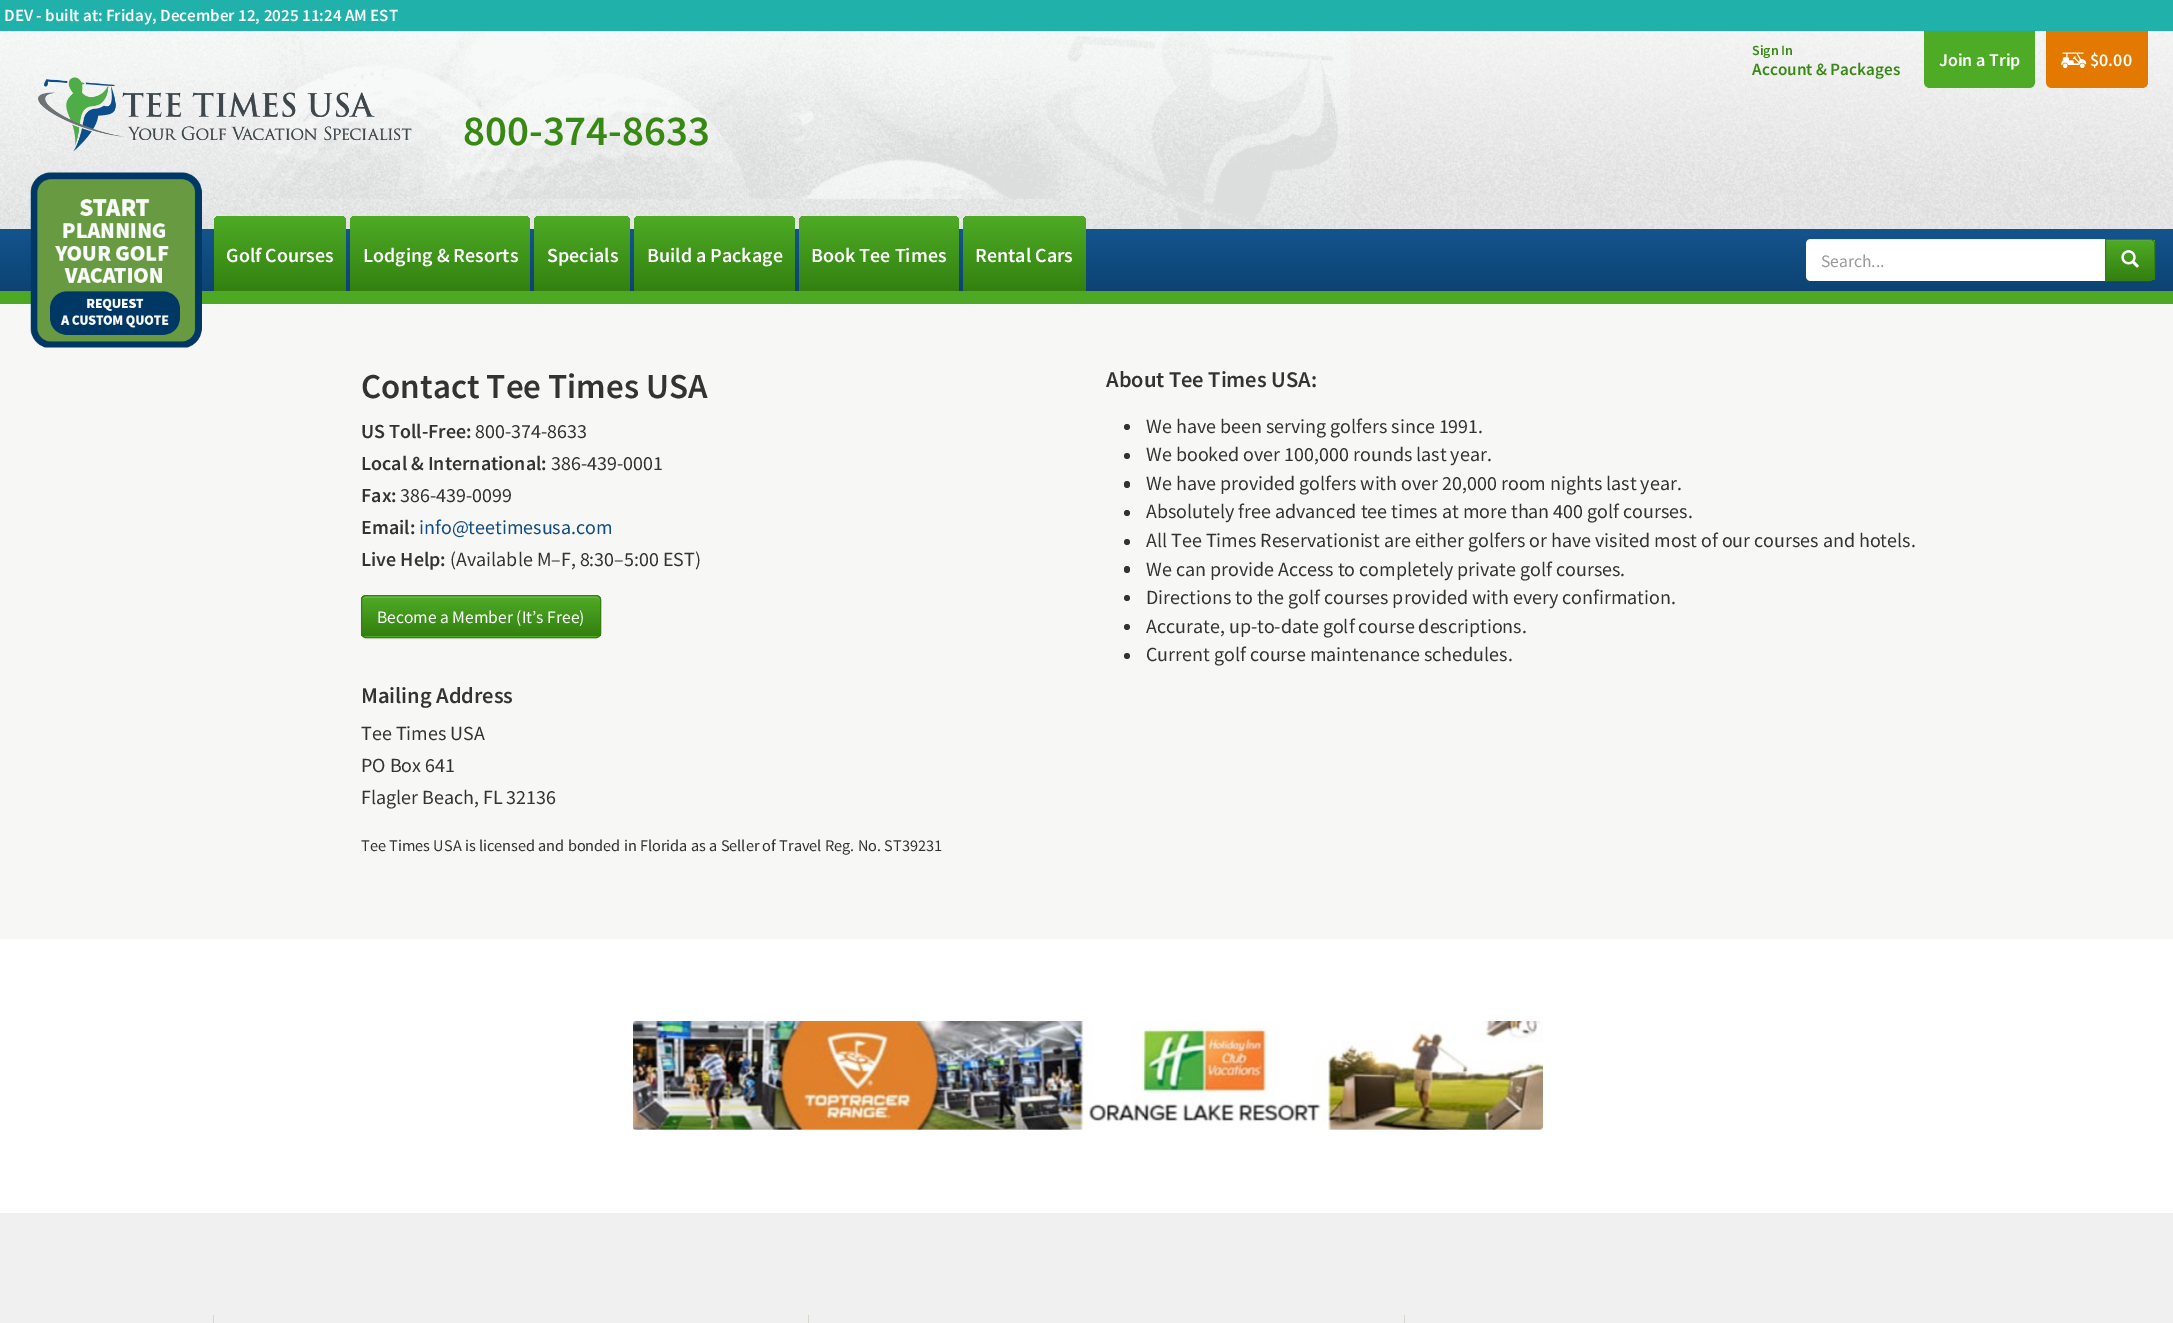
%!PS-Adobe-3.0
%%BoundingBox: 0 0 2173 1323
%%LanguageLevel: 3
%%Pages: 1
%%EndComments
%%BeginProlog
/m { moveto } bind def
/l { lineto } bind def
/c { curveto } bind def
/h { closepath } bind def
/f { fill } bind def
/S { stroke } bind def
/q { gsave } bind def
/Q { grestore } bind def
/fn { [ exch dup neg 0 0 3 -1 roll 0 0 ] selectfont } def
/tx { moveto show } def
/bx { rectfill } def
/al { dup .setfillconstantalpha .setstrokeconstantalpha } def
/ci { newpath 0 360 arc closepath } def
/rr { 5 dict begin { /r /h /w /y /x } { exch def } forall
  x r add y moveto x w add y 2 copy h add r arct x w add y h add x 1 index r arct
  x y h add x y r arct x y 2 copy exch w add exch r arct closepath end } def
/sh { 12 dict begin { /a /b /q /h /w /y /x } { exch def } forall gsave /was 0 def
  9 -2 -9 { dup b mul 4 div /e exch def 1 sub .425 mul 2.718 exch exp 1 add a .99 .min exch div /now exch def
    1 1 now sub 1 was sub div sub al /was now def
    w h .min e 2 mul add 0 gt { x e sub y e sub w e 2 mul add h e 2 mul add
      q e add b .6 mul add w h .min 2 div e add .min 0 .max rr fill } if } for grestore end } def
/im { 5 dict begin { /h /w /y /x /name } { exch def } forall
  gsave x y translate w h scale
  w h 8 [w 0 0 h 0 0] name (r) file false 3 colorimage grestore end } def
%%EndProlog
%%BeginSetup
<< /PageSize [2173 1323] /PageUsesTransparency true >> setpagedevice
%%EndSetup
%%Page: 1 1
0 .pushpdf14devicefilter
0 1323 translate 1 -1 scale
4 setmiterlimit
1 setgray
0 0 2173 1323 bx
(image0.raw) 0 31 2173 198 im
0.125 0.698 0.667 setrgbcolor
0 0 2173 31 bx
/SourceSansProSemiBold-SemiBold 17 fn
1 setgray
(DEV - built at: Friday, December 12, 2025 11:24 AM EST) 4 21 tx
(image1.raw) 0 31 1350 198 im
/SourceSansProSemiBold-SemiBold 14 fn
0.22 0.537 0.075 setrgbcolor
(Sign In) 1752 55 tx
/SourceSansProSemiBold-SemiBold 17.25 fn
(Account & Packages) 1752 75 tx
0.306 0.671 0.145 setrgbcolor
1924 31 m 2035 31 l 2035 82 l 2035 85.5 2032.5 88 2029 88 c 1930 88 l 1926.5 88 1924 85.5 1924 82 c h f
/SourceSansProSemiBold-SemiBold 18 fn
1 setgray
(Join a Trip) 1939 66 tx
0.894 0.475 0 setrgbcolor
2046 31 m 2148 31 l 2148 82 l 2148 85.5 2145.5 88 2142 88 c 2052 88 l 2048.5 88 2046 85.5 2046 82 c h f
(image2.raw) 2061 52 26 17 im
1 setgray
($0.00) 2090 66 tx
(image3.raw) 38 77 374 75 im
/SourceSansProSemiBold-SemiBold 42.75 fn
0.22 0.537 0.075 setrgbcolor
(800-374-8633) 463 145 tx
q 0 229 m 2173 229 l 2173 291 l 0 291 l h clip newpath
<< /ShadingType 2 /ColorSpace /DeviceRGB /Coords [1087 229 1087 291] /Extend [true true] /Function << /FunctionType 2 /Domain [0 1] /C0 [0.078 0.329 0.553] /C1 [0.047 0.263 0.451] /N 1 >> >> shfill Q
0.302 0.659 0.141 setrgbcolor
0 291 2173 13 bx
0.969 0.969 0.961 setrgbcolor
0 304 2173 635 bx
(image4.raw) 30 172 172 176 im
q 220 216 m 340 216 l 343.5 216 346 218.5 346 222 c 346 291 l 214 291 l 214 222 l 214 218.5 216.5 216 220 216 c h clip newpath
<< /ShadingType 2 /ColorSpace /DeviceRGB /Coords [280 216 280 291] /Extend [true true] /Function << /FunctionType 2 /Domain [0 1] /C0 [0.306 0.671 0.145] /C1 [0.196 0.506 0.063] /N 1 >> >> shfill Q
/SourceSansProSemiBold-SemiBold 20 fn
1 setgray
(Golf Courses) 226 262 tx
q 356 216 m 524 216 l 527.5 216 530 218.5 530 222 c 530 291 l 350 291 l 350 222 l 350 218.5 352.5 216 356 216 c h clip newpath
<< /ShadingType 2 /ColorSpace /DeviceRGB /Coords [440 216 440 291] /Extend [true true] /Function << /FunctionType 2 /Domain [0 1] /C0 [0.306 0.671 0.145] /C1 [0.196 0.506 0.063] /N 1 >> >> shfill Q
(Lodging & Resorts) 363 262 tx
q 540 216 m 624 216 l 627.5 216 630 218.5 630 222 c 630 291 l 534 291 l 534 222 l 534 218.5 536.5 216 540 216 c h clip newpath
<< /ShadingType 2 /ColorSpace /DeviceRGB /Coords [582 216 582 291] /Extend [true true] /Function << /FunctionType 2 /Domain [0 1] /C0 [0.306 0.671 0.145] /C1 [0.196 0.506 0.063] /N 1 >> >> shfill Q
(Specials) 547 262 tx
q 640 216 m 789 216 l 792.5 216 795 218.5 795 222 c 795 291 l 634 291 l 634 222 l 634 218.5 636.5 216 640 216 c h clip newpath
<< /ShadingType 2 /ColorSpace /DeviceRGB /Coords [714 216 714 291] /Extend [true true] /Function << /FunctionType 2 /Domain [0 1] /C0 [0.306 0.671 0.145] /C1 [0.196 0.506 0.063] /N 1 >> >> shfill Q
(Build a Package) 647 262 tx
q 805 216 m 953 216 l 956.5 216 959 218.5 959 222 c 959 291 l 799 291 l 799 222 l 799 218.5 801.5 216 805 216 c h clip newpath
<< /ShadingType 2 /ColorSpace /DeviceRGB /Coords [879 216 879 291] /Extend [true true] /Function << /FunctionType 2 /Domain [0 1] /C0 [0.306 0.671 0.145] /C1 [0.196 0.506 0.063] /N 1 >> >> shfill Q
(Book Tee Times) 811 262 tx
q 969 216 m 1080 216 l 1083.5 216 1086 218.5 1086 222 c 1086 291 l 963 291 l 963 222 l 963 218.5 965.5 216 969 216 c h clip newpath
<< /ShadingType 2 /ColorSpace /DeviceRGB /Coords [1024 216 1024 291] /Extend [true true] /Function << /FunctionType 2 /Domain [0 1] /C0 [0.306 0.671 0.145] /C1 [0.196 0.506 0.063] /N 1 >> >> shfill Q
(Rental Cars) 975 262 tx
1811 239 m 2106 239 l 2106 281 l 1811 281 l 1808 281 1806 279 1806 276 c 1806 244 l 1806 241 1808 239 1811 239 c h f
0.07 al
0 setgray
1811 240 m 2106 240 l 2106 239 l 1811 239 l 1808 239 1806 242 1806 245 c 1806 242 1808 240 1811 240 c h f
/SourceSansPro-Regular 17.5 fn
1 al
0.6 setgray
(Search...) 1821 267 tx
0 setgray
2105 240 50 43 5 0.5 0.07 sh
q
2105 239 m 2150 239 l 2153 239 2155 241 2155 244 c 2155 276 l 2155 279 2153 281 2150 281 c 2105 281 l h clip newpath
q 2106 240 m 2155 240 l 2155 280 l 2106 280 l h clip newpath
<< /ShadingType 2 /ColorSpace /DeviceRGB /Coords [2130 240 2130 280] /Extend [true true] /Function << /FunctionType 2 /Domain [0 1] /C0 [0.31 0.671 0.145] /C1 [0.2 0.502 0.063] /N 1 >> >> shfill Q
Q
0.412 0.718 0.275 setrgbcolor
2106 241 m 2150 241 l 2152 241 2154 243 2154 245 c 2154 244 l 2154 242 2152 240 2150 240 c 2106 240 l h f
0.2 0.502 0.063 setrgbcolor
2105.5 239.5 m 2150 239.5 l 2152.5 239.5 2154.5 241.5 2154.5 244 c 2154.5 276 l 2154.5 278.5 2152.5 280.5 2150 280.5 c 2105.5 280.5 l h S
(image5.raw) 2121 250 18 18 im
/SourceSansProSemiBold-SemiBold 35 fn
0.2 setgray
(Contact Tee Times USA) 361 398 tx
/SourceSansProSemiBold-SemiBold 20 fn
(US Toll-Free:) 361 438 tx
/SourceSansPro-Regular 20 fn
(800-374-8633) 475 438 tx
/SourceSansProSemiBold-SemiBold 20 fn
(Local & International:) 361 470 tx
/SourceSansPro-Regular 20 fn
(386-439-0001) 551 470 tx
/SourceSansProSemiBold-SemiBold 20 fn
(Fax:) 361 502 tx
/SourceSansPro-Regular 20 fn
(386-439-0099) 400 502 tx
/SourceSansProSemiBold-SemiBold 20 fn
(Email:) 361 534 tx
/SourceSansPro-Regular 20 fn
0.067 0.298 0.506 setrgbcolor
(info@teetimesusa.com) 419 534 tx
/SourceSansProSemiBold-SemiBold 20 fn
0.2 setgray
(Live Help:) 361 566 tx
/SourceSansPro-Regular 20 fn
(\(Available M–F, 8:30–5:00 EST\)) 450 566 tx
0 setgray
361 596 240 43 5 0.5 0.07 sh
0.31 0.671 0.145 setrgbcolor
361 595 240 43 5 rr f
q
361 595 240 43 5 rr clip newpath
q 361 596 m 601 596 l 601 636 l 361 636 l h clip newpath
<< /ShadingType 2 /ColorSpace /DeviceRGB /Coords [481 596 481 636] /Extend [true true] /Function << /FunctionType 2 /Domain [0 1] /C0 [0.31 0.671 0.145] /C1 [0.2 0.502 0.063] /N 1 >> >> shfill Q
Q
0.412 0.714 0.271 setrgbcolor
366 598 m 596 598 l 598 598 600 599 600 601 c 600 600 l 600 598 598 596 596 596 c 367 596 l 365 596 364 597 363 599 c h f
0.2 0.502 0.063 setrgbcolor
361.5 595.5 239 42 4.5 rr S
/SourceSansPro-Regular 17.5 fn
1 setgray
(Become a Member \(It’s Free\)) 377 623 tx
/SourceSansProSemiBold-SemiBold 22.5 fn
0.2 setgray
(Mailing Address) 361 703 tx
/SourceSansPro-Regular 20 fn
(Tee Times USA) 361 740 tx
(PO Box 641) 361 772 tx
(Flagler Beach, FL 32136) 361 804 tx
/SourceSansPro-Regular 16.25 fn
(Tee Times USA is licensed and bonded in Florida as a Seller of Travel Reg. No. ST39231) 361 851 tx
/SourceSansProSemiBold-SemiBold 22.5 fn
(About Tee Times USA:) 1106 387 tx
1127 427 3 ci f
/SourceSansPro-Regular 20 fn
(We have been serving golfers since 1991.) 1146 433 tx
1127 456 3 ci f
(We booked over 100,000 rounds last year.) 1146 461 tx
1124 481 6 7 3 rr f
(We have provided golfers with over 20,000 room nights last year.) 1146 490 tx
1127 513 3 ci f
(Absolutely free advanced tee times at more than 400 golf courses.) 1146 518 tx
1127 542 3 ci f
(All Tee Times Reservationist are either golfers or have visited most of our courses and hotels.) 1146 547 tx
1124 566 6 7 3 rr f
(We can provide Access to completely private golf courses.) 1146 576 tx
1127 598 3 ci f
(Directions to the golf courses provided with every confirmation.) 1146 604 tx
1127 627 3 ci f
(Accurate, up-to-date golf course descriptions.) 1146 633 tx
1127 656 3 ci f
(Current golf course maintenance schedules.) 1146 661 tx
(image6.raw) 633 1021 910 109 im
0.941 setgray
0 1213 2173 110 bx
0.839 0.839 0.8 setrgbcolor
213 1315 1 8 bx
808 1315 1 8 bx
1404 1315 1 8 bx
.poppdf14devicefilter showpage
%%EOF
